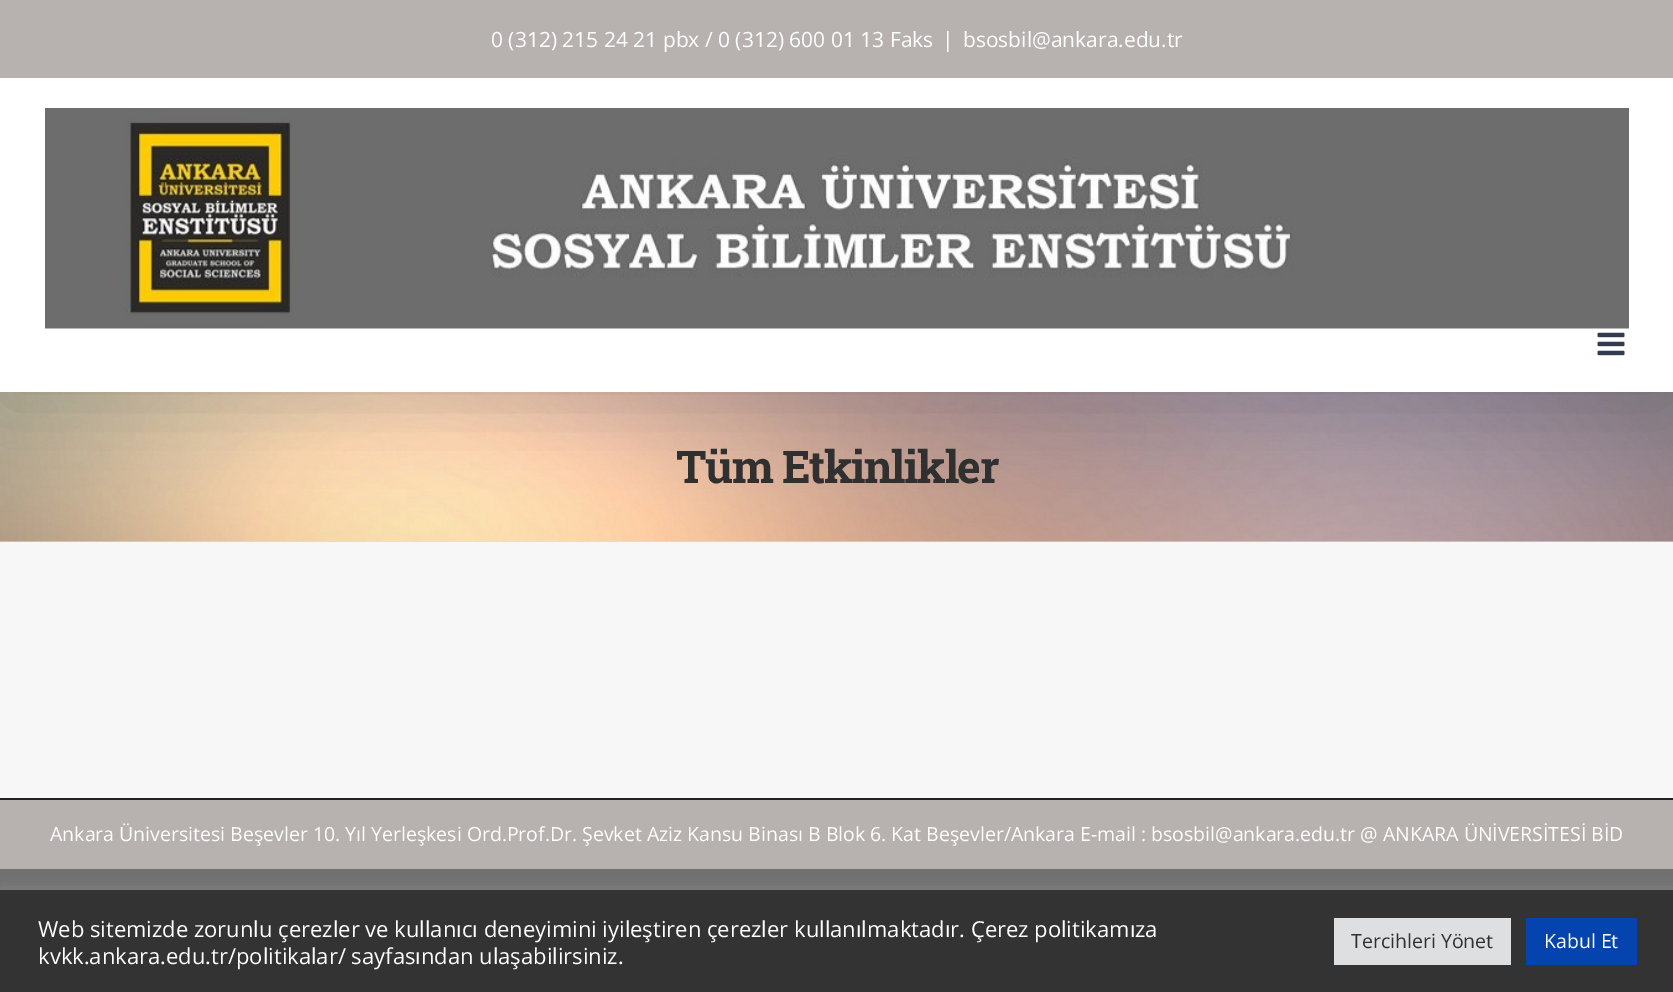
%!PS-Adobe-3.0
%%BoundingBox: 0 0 1673 992
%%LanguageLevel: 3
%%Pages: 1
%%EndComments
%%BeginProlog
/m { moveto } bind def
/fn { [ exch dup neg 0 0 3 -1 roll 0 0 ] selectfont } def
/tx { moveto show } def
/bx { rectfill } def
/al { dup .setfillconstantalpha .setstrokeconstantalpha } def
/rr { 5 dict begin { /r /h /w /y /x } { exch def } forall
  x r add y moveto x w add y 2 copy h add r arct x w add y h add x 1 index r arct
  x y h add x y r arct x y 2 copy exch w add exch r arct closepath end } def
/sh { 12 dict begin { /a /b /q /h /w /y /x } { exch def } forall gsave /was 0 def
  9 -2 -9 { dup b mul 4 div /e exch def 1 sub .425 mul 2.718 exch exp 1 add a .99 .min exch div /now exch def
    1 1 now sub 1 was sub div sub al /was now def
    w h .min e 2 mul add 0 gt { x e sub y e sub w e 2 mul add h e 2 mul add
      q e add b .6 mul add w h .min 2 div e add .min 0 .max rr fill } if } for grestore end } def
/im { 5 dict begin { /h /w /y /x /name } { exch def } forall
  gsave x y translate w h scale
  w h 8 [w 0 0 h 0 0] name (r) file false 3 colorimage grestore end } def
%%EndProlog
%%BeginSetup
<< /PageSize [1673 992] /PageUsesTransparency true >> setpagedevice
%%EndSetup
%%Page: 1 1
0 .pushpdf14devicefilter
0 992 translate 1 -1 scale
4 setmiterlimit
0.439 setgray
0 0 1673 992 bx
0.882 0.882 0.89 setrgbcolor
0 541 1673 1 bx
(image2.raw) 0 392 1673 150 im
0 setgray
3 18 1668 386 0 37.5 0.14 sh
0.718 0.694 0.686 setrgbcolor
0 0 1673 78 bx
/OpenSans-Regular 21 fn
1 setgray
(0 \(312\) 215 24 21 pbx / 0 \(312\) 600 01 13 Faks) 491 47 tx
(|) 942 47 tx
(bsosbil@ankara.edu.tr) 963 47 tx
0 78 1673 314 bx
(image0.raw) 45 108 1584 221 im
(image1.raw) 1597 332 28 24 im
/RobotoSlab-Bold 45 fn
0.188 setgray
676 483 m -1.5 0 (Tüm Etkinlikler) ashow
0.969 setgray
0 542 1673 256 bx
0.718 0.694 0.686 setrgbcolor
0 800 1673 69 bx
0.129 setgray
0 798 1673 2 bx
/OpenSans-Regular 19.5 fn
1 setgray
(Ankara Üniversitesi Beşevler 10. Yıl Yerleşkesi Ord.Prof.Dr. Şevket Aziz Kansu Binası B Blok 6. Kat Beşevler/Ankara E-mail : bsosbil@ankara.edu.tr @ ANKARA ÜNİVERSİTESİ BİD) 50 841 tx
0.675 0.671 0.671 setrgbcolor
0 888 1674 104 0 7.5 0.3 sh
0.2 setgray
0 890 1673 102 bx
/OpenSans-Regular 22 fn
1 setgray
(Web sitemizde zorunlu çerezler ve kullanıcı deneyimini iyileştiren çerezler kullanılmaktadır. Çerez politikamıza) 38 937 tx
(kvkk.ankara.edu.tr/politikalar/ sayfasından ulaşabilirsiniz.) 38 964 tx
0.871 0.875 0.878 setrgbcolor
1334 918 177 47 bx
/OpenSans-Regular 19.5 fn
0.188 setgray
(Tercihleri Yönet) 1351 948 tx
0.02 0.267 0.682 setrgbcolor
1526 918 111 47 bx
1 setgray
(Kabul Et) 1544 948 tx
.poppdf14devicefilter showpage
%%EOF
